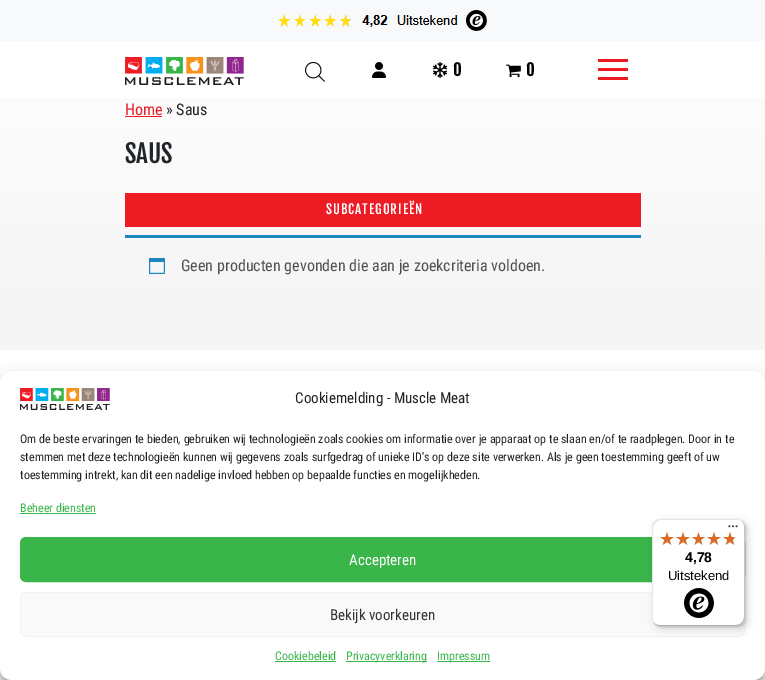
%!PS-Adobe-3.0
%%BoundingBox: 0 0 765 680
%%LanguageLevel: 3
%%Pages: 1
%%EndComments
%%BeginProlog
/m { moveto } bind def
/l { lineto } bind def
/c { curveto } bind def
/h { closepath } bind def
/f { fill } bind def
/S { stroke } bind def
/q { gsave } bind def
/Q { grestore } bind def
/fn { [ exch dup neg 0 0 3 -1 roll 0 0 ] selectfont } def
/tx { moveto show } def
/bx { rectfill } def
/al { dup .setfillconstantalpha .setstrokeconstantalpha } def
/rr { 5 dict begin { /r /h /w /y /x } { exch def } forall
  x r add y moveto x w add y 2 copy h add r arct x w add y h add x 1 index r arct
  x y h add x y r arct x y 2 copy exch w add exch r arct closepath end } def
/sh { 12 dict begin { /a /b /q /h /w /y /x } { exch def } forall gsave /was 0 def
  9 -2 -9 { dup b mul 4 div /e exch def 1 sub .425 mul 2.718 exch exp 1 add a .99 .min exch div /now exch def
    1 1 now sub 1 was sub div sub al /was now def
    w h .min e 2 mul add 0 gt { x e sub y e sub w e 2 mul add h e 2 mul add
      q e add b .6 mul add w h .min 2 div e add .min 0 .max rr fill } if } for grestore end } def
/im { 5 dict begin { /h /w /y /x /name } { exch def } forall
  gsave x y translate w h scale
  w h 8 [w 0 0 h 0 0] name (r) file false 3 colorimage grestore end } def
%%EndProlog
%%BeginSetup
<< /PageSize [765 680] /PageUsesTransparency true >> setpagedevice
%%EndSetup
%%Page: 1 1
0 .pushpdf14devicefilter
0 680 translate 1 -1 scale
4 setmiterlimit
1 setgray
0 0 765 680 bx
q 0 98 m 765 98 l 765 350 l 0 350 l h clip newpath
<< /ShadingType 2 /ColorSpace /DeviceRGB /Coords [382 0 383 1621] /Extend [true true] /Function << /FunctionType 3 /Domain [0 1] /Functions [<< /FunctionType 2 /Domain [0 1] /C0 [1 1 1] /C1 [0.961 0.961 0.961] /N 1 >> << /FunctionType 2 /Domain [0 1] /C0 [0.961 0.961 0.961] /C1 [0.961 0.961 0.961] /N 1 >>] /Bounds [0.2] /Encode [0 1 0 1] >> >> shfill Q
0.973 0.976 0.98 setrgbcolor
0 0 765 41 bx
(image0.raw) 278 10 209 21 im
(image1.raw) 125 57 119 28 im
(image2.raw) 305 62 20 20 im
(image3.raw) 372 62 14 16 im
(image4.raw) 433 62 14 16 im
/FjallaOne-Bold 16 fn
0 setgray
453 76 m 1 0 (0) ashow
(image5.raw) 506 64 15 14 im
526 76 m 1 0 (0) ashow
0.929 0.11 0.141 setrgbcolor
598 59 30 3 bx
598 68 30 3 bx
598 77 30 3 bx
/RobotoCondensed-Regular 16 fn
(Home) 125 115 tx
125 116 37 1 bx
0.129 0.145 0.161 setrgbcolor
(» Saus) 166 115 tx
/FjallaOne-Regular 25 fn
(SAUS) 125 163 tx
0.929 0.11 0.141 setrgbcolor
125 193 516 34 bx
/FjallaOne-Regular 13 fn
1 setgray
326 214 m 1 0 (SUBCATEGORIEËN) ashow
0.118 0.522 0.745 setrgbcolor
125 235 516 3 bx
(image6.raw) 149 258 16 16 im
/RobotoCondensed-Regular 16 fn
0.318 setgray
(Geen producten gevonden die aan je zoekcriteria voldoen.) 181 271 tx
0 setgray
0 377 765 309 12 3 0.23 sh
0 381 765 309 12 10 0.19 sh
1 setgray
0 371 765 309 12 rr f
(image7.raw) 20 388 90 22 im
/RobotoCondensed-Regular 15 fn
0.133 setgray
(Cookiemelding - Muscle Meat) 295 403 tx
/RobotoCondensed-Regular 12 fn
(Om de beste ervaringen te bieden, gebruiken wij technologieën zoals cookies om informatie over je apparaat op te slaan en/of te raadplegen. Door in te) 20 443 tx
(stemmen met deze technologieën kunnen wij gegevens zoals surfgedrag of unieke ID's op deze site verwerken. Als je geen toestemming geeft of uw) 20 461 tx
(toestemming intrekt, kan dit een nadelige invloed hebben op bepaalde functies en mogelijkheden.) 20 479 tx
0.224 0.71 0.29 setrgbcolor
(Beheer diensten) 20 512 tx
20 513 76 1 bx
20.5 537.5 724 44 5.5 rr q f Q
S
/RobotoCondensed-Regular 15 fn
1 setgray
(Accepteren) 349 565 tx
0.976 setgray
20.5 592.5 724 44 5.5 rr q f Q
0.949 setgray
S
0.2 setgray
(Bekijk voorkeuren) 330 620 tx
/RobotoCondensed-Regular 12 fn
0.224 0.71 0.29 setrgbcolor
(Cookiebeleid) 275 660 tx
275 661 61 1 bx
346 661 81 1 bx
(Privacyverklaring) 346 660 tx
437 661 53 1 bx
(Impressum) 437 660 tx
0 setgray
655 522 93 107 8 4 0.15 sh
653 520 93 107 8 1 0.15 sh
1 setgray
652 519 93 107 8 rr f
0.898 setgray
661 520 m 738 520 l 740 520 742 521 744 523 c 742 521 740 519 737 519 c 660 519 l 656 519 652 523 652 527 c 652 618 l 652 621 654 623 656 625 c 654 623 653 621 653 619 c 653 528 l 653 524 657 520 661 520 c h f
0.2 al
0 setgray
653 622 m 655 624 657 626 660 626 c 737 626 l 741 626 745 622 745 618 c 745 527 l 745 524 743 522 741 520 c 743 522 744 524 744 526 c 744 617 l 744 621 740 625 736 625 c 659 625 l 657 625 655 624 653 622 c h f
0.196 setgray
654 623 m 655 625 658 626 660 626 c 737 626 l 741 626 745 622 745 618 c 745 527 l 745 525 744 522 742 521 c 743 522 744 524 744 526 c 744 617 l 744 622 741 625 736 625 c 659 625 l 657 625 655 624 654 623 c h f
0.3 al
1 setgray
736 626 m 737 626 l 741 626 745 622 745 618 c 745 527 l 745 525 744 522 742 521 c 743 522 744 524 744 526 c 744 618 l 744 622 741 626 736 626 c h f
1 al
(image8.raw) 728 525 10 3 im
(image9.raw) 660 532 14 13 im
(image9.raw) 676 532 14 13 im
(image10.raw) 692 532 13 13 im
(image9.raw) 707 532 14 13 im
(image9.raw) 723 532 14 13 im
(image11.raw) 660 532 14 13 im
(image11.raw) 676 532 14 13 im
(image12.raw) 692 532 13 13 im
(image11.raw) 707 532 14 13 im
(image13.raw) 723 532 11 13 im
/LiberationSans-Bold 14 fn
0 setgray
(4,78) 685 562 tx
/LiberationSans-Regular 13 fn
(Uitstekend) 668 580 tx
(image14.raw) 684 588 30 30 im
.poppdf14devicefilter showpage
%%EOF
